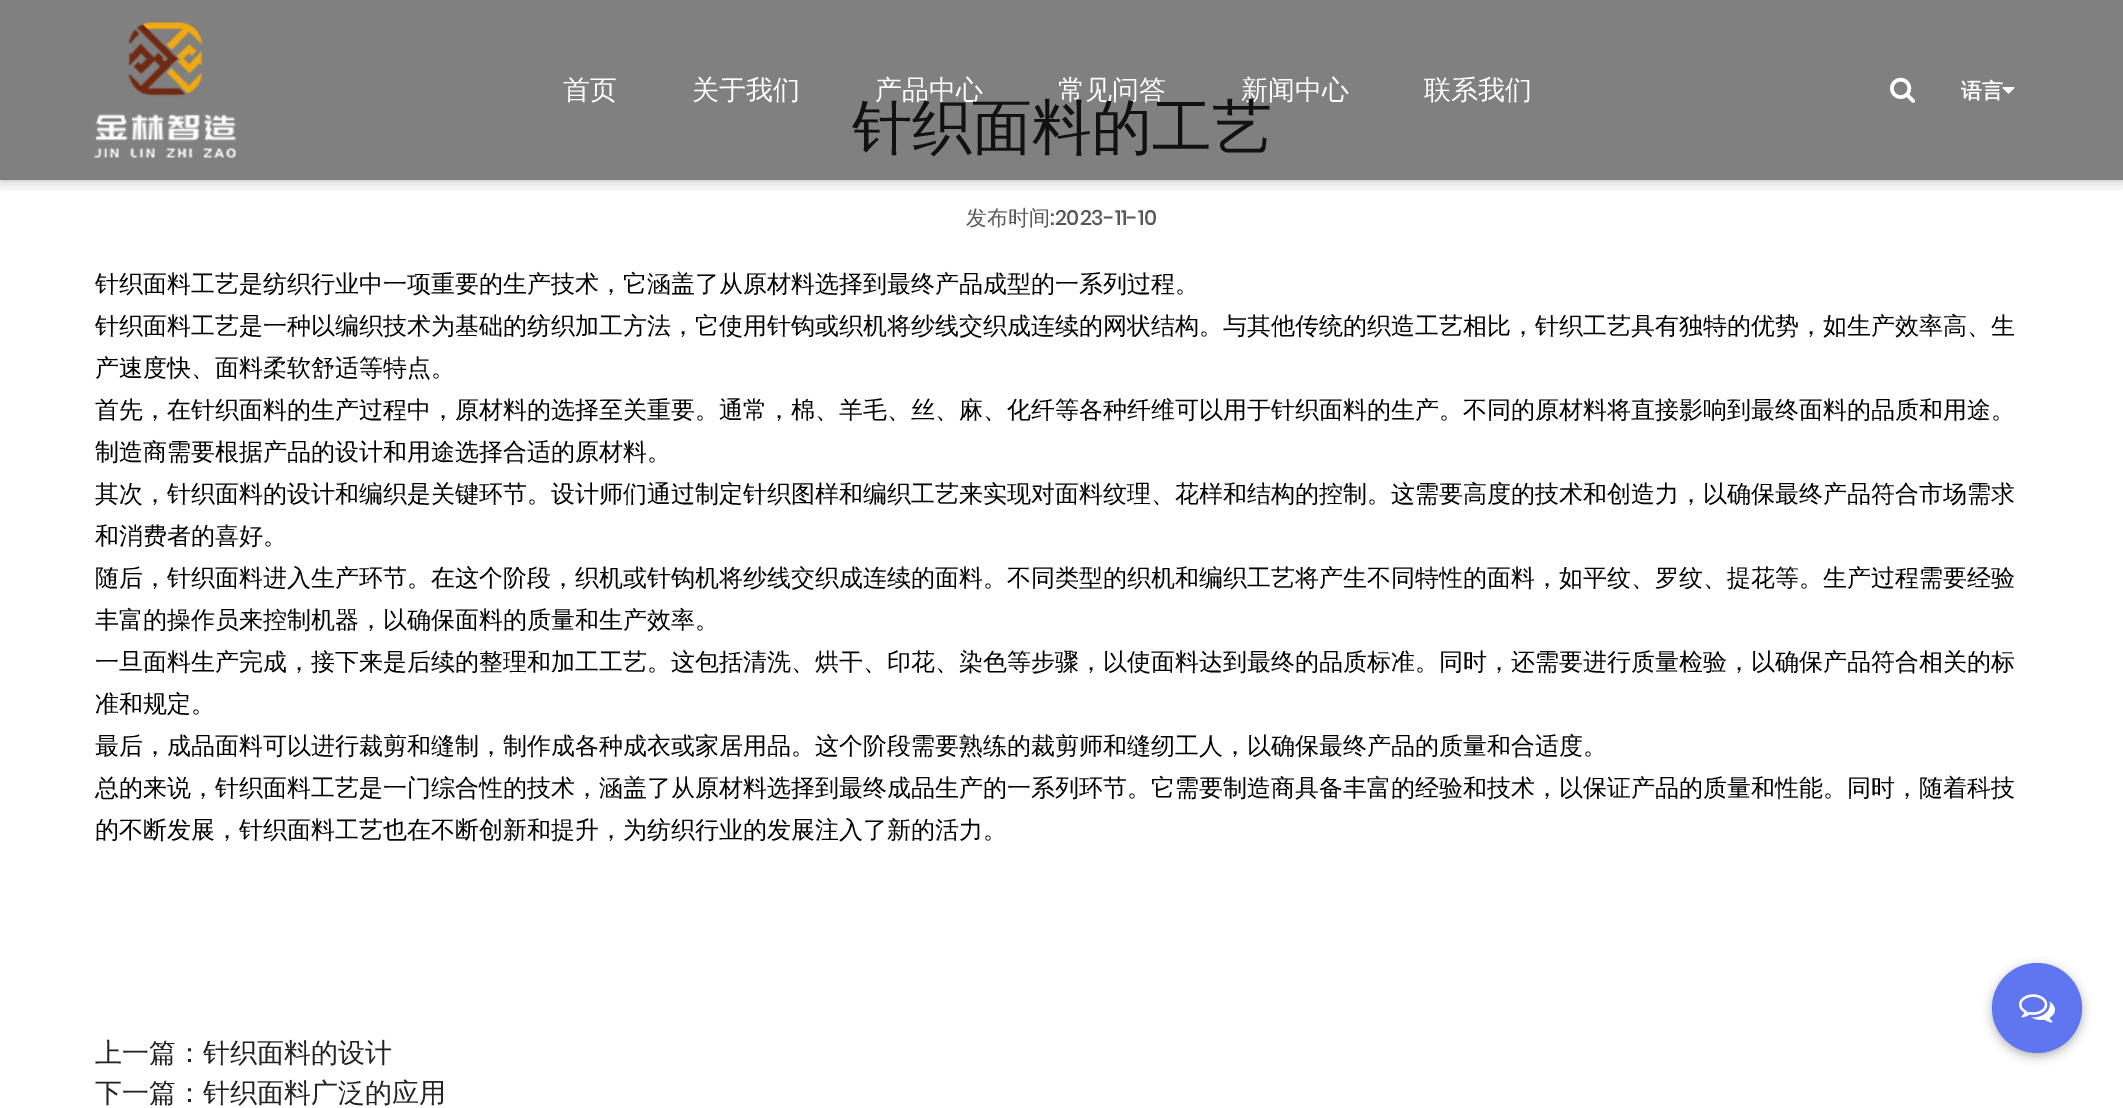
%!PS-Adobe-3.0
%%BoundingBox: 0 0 2123 1108
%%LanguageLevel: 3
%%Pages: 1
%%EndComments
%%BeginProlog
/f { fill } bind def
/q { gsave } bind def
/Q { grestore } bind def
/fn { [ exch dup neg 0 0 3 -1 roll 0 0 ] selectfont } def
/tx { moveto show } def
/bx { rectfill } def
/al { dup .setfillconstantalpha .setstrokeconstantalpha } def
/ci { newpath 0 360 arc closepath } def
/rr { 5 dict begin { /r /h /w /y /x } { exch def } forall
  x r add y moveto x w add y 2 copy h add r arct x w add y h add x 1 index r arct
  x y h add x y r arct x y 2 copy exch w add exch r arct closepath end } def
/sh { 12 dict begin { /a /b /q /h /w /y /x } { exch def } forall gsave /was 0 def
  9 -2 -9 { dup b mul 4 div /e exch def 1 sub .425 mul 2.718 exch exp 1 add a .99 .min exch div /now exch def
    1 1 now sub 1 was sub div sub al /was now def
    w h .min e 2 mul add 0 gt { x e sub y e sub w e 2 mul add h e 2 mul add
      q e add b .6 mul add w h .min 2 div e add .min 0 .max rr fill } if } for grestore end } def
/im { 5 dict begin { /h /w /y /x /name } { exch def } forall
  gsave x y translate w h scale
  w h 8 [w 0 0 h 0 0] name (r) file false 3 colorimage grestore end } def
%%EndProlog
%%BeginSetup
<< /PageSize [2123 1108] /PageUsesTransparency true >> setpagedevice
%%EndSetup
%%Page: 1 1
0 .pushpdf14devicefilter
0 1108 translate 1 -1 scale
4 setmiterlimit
1 setgray
0 0 2123 1108 bx
0.502 setgray
0 0 2123 180 bx
q
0 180 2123 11 rectclip
0 setgray
0 0 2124 180 0 7.5 0.3 sh
Q
(image0.raw) 94 22 142 136 im
/WenQuanYiZenHei-Medium 27 fn
1 setgray
(首页) 563 99 tx
(关于我们) 692 99 tx
(产品中心) 875 99 tx
(常见问答) 1058 99 tx
(新闻中心) 1241 99 tx
(联系我们) 1424 99 tx
(image1.raw) 1890 77 25 26 im
/WenQuanYiZenHei-Bold 21 fn
(语言) 1961 98 tx
(image2.raw) 2002 87 13 7 im
/WenQuanYiZenHei-Medium 60 fn
0.067 setgray
(针织面料的工艺) 852 148 tx
/WenQuanYiZenHei-Medium 21 fn
0.345 setgray
(发布时间) 966 225 tx
/Poppins-Medium 21 fn
(:2023-11-10) 1050 225 tx
/WenQuanYiZenHei-Medium 24 fn
0 setgray
(针织面料) 95 292 tx
(工艺是纺织行业中一项重要的生产技术，它涵盖了从原材料选择到最终产品成型的一系列过程。) 191 292 tx
(针织面料工艺是一种以编织技术为基础的纺织加工方法，它使用针钩或织机将纱线交织成连续的网状结构。与其他传统的织造工艺相比，针织工艺具有独特的优势，如生产效率高、生) 95 334 tx
(产速度快、面料柔软舒适等特点。) 95 376 tx
(首先，在针织面料的生产过程中，原材料的选择至关重要。通常，棉、羊毛、丝、麻、化纤等各种纤维可以用于针织面料的生产。不同的原材料将直接影响到最终面料的品质和用途。) 95 418 tx
(制造商需要根据产品的设计和用途选择合适的原材料。) 95 460 tx
(其次，针织面料的设计和编织是关键环节。设计师们通过制定针织图样和编织工艺来实现对面料纹理、花样和结构的控制。这需要高度的技术和创造力，以确保最终产品符合市场需求) 95 502 tx
(和消费者的喜好。) 95 544 tx
(随后，针织面料进入生产环节。在这个阶段，织机或针钩机将纱线交织成连续的面料。不同类型的织机和编织工艺将产生不同特性的面料，如平纹、罗纹、提花等。生产过程需要经验) 95 586 tx
(丰富的操作员来控制机器，以确保面料的质量和生产效率。) 95 628 tx
(一旦面料生产完成，接下来是后续的整理和加工工艺。这包括清洗、烘干、印花、染色等步骤，以使面料达到最终的品质标准。同时，还需要进行质量检验，以确保产品符合相关的标) 95 670 tx
(准和规定。) 95 712 tx
(最后，成品面料可以进行裁剪和缝制，制作成各种成衣或家居用品。这个阶段需要熟练的裁剪师和缝纫工人，以确保最终产品的质量和合适度。) 95 754 tx
(总的来说，针织面料工艺是一门综合性的技术，涵盖了从原材料选择到最终成品生产的一系列环节。它需要制造商具备丰富的经验和技术，以保证产品的质量和性能。同时，随着科技) 95 796 tx
(的不断发展，针织面料工艺也在不断创新和提升，为纺织行业的发展注入了新的活力。) 95 838 tx
/WenQuanYiZenHei-Medium 27 fn
0.133 setgray
(上一篇：针织面料的设计) 95 1062 tx
(下一篇：针织面料广泛的应用) 95 1102 tx
0 setgray
1992 966 90 90 45 5 0.3 sh
0.376 0.463 0.945 setrgbcolor
2037 1008 45 ci f
(image3.raw) 2019 994 36 29 im
.poppdf14devicefilter showpage
%%EOF
